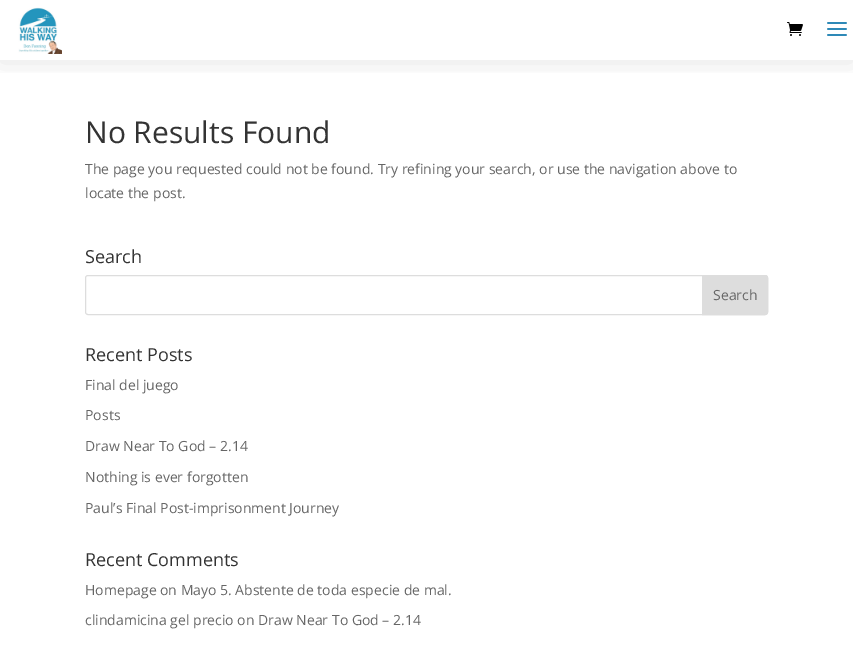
%!PS-Adobe-3.0
%%BoundingBox: 0 0 853 661
%%LanguageLevel: 3
%%Pages: 1
%%EndComments
%%BeginProlog
/m { moveto } bind def
/l { lineto } bind def
/c { curveto } bind def
/h { closepath } bind def
/f { fill } bind def
/S { stroke } bind def
/q { gsave } bind def
/Q { grestore } bind def
/fn { [ exch dup neg 0 0 3 -1 roll 0 0 ] selectfont } def
/tx { moveto show } def
/bx { rectfill } def
/al { dup .setfillconstantalpha .setstrokeconstantalpha } def
/rr { 5 dict begin { /r /h /w /y /x } { exch def } forall
  x r add y moveto x w add y 2 copy h add r arct x w add y h add x 1 index r arct
  x y h add x y r arct x y 2 copy exch w add exch r arct closepath end } def
/sh { 12 dict begin { /a /b /q /h /w /y /x } { exch def } forall gsave /was 0 def
  9 -2 -9 { dup b mul 4 div /e exch def 1 sub .425 mul 2.718 exch exp 1 add a .99 .min exch div /now exch def
    1 1 now sub 1 was sub div sub al /was now def
    w h .min e 2 mul add 0 gt { x e sub y e sub w e 2 mul add h e 2 mul add
      q e add b .6 mul add w h .min 2 div e add .min 0 .max rr fill } if } for grestore end } def
/im { 5 dict begin { /h /w /y /x /name } { exch def } forall
  gsave x y translate w h scale
  w h 8 [w 0 0 h 0 0] name (r) file false 3 colorimage grestore end } def
%%EndProlog
%%BeginSetup
<< /PageSize [853 661] /PageUsesTransparency true >> setpagedevice
%%EndSetup
%%Page: 1 1
0 .pushpdf14devicefilter
0 661 translate 1 -1 scale
4 setmiterlimit
1 setgray
0 0 853 661 bx
q
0 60 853 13 rectclip
0 setgray
0 2 853 60 0 12.5 0.1 sh
Q
(image0.raw) 18 7 44 47 im
(image1.raw) 787 22 16 14 im
(image2.raw) 827 22 20 14 im
/OpenSans-Regular 30 fn
0.2 setgray
(No Results Found) 85 143 tx
/OpenSans-Regular 14 fn
0.4 setgray
(The page you requested could not be found. Try refining your search, or use the navigation above to) 85 174 tx
(locate the post.) 85 198 tx
/OpenSans-Regular 18 fn
0.2 setgray
(Search) 85 263 tx
0.867 setgray
85.5 275.5 682 39 2.5 rr S
702.5 275.5 m 765 275.5 l 766.5 275.5 767.5 276.5 767.5 278 c 767.5 312 l 767.5 313.5 766.5 314.5 765 314.5 c 702.5 314.5 l h q f Q
S
/OpenSans-Regular 14 fn
0.4 setgray
(Search) 713 300 tx
/OpenSans-Regular 18 fn
0.2 setgray
(Recent Posts) 85 361 tx
/OpenSans-Regular 14 fn
0.4 setgray
(Final del juego) 85 390 tx
(Posts) 85 420 tx
(Draw Near To God – 2.14) 85 451 tx
(Nothing is ever forgotten) 85 482 tx
(Paul’s Final Post-imprisonment Journey) 85 513 tx
/OpenSans-Regular 18 fn
0.2 setgray
(Recent Comments) 85 566 tx
/OpenSans-Regular 14 fn
0.4 setgray
(Homepage on Mayo 5. Abstente de toda especie de mal.) 85 595 tx
(clindamicina gel precio on Draw Near To God – 2.14) 85 625 tx
.poppdf14devicefilter showpage
%%EOF
